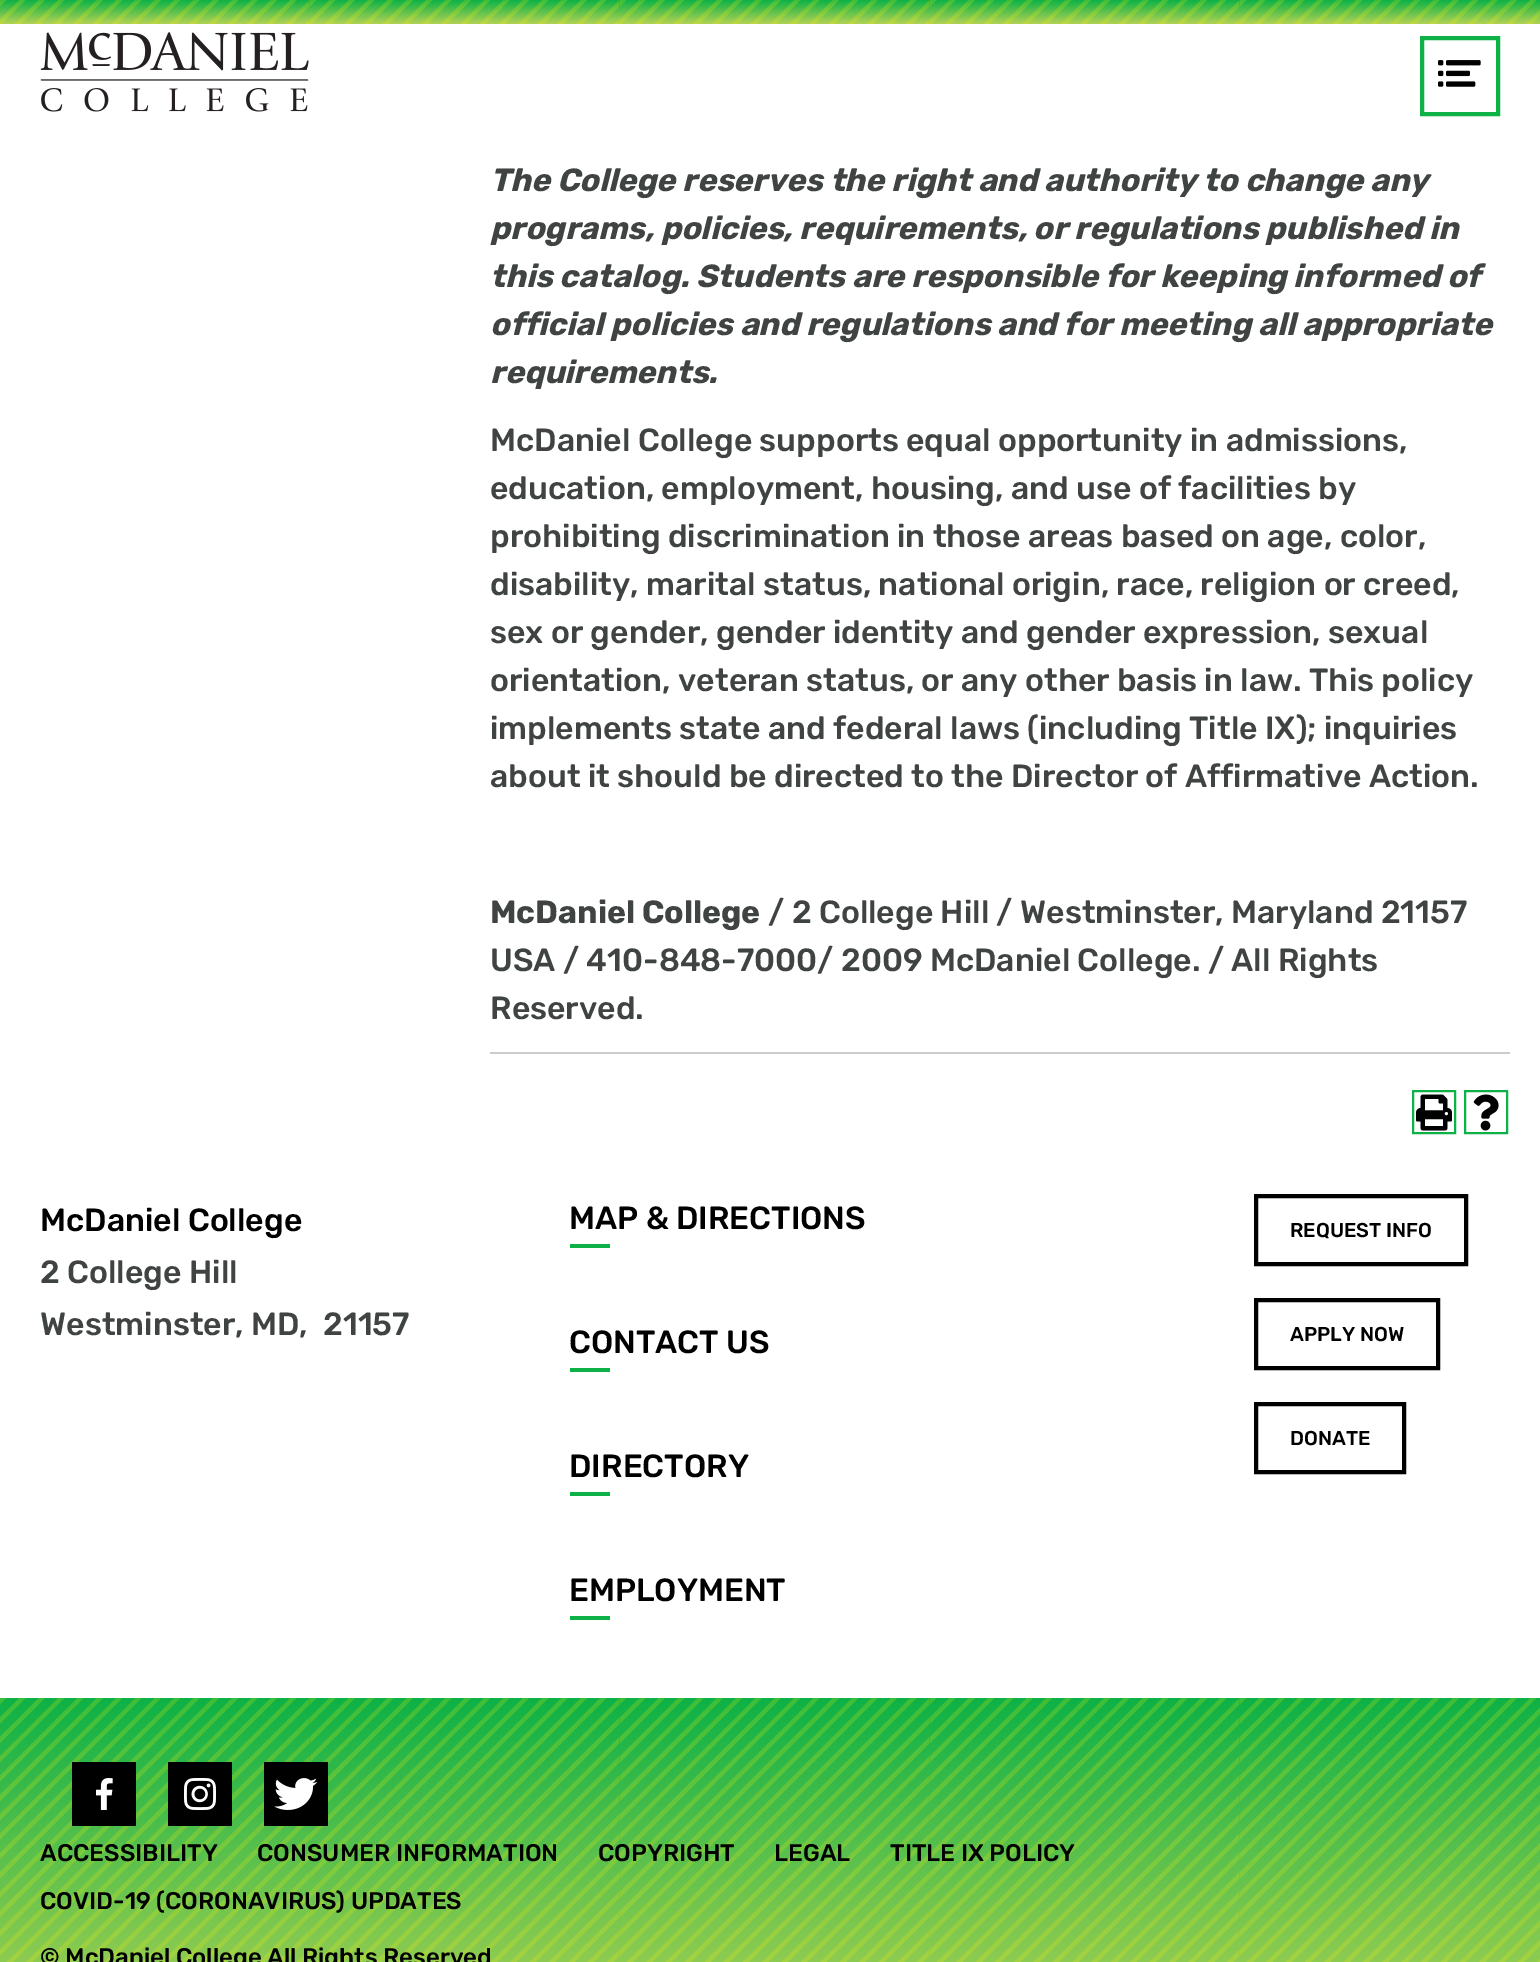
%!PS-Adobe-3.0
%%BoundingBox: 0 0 1540 1962
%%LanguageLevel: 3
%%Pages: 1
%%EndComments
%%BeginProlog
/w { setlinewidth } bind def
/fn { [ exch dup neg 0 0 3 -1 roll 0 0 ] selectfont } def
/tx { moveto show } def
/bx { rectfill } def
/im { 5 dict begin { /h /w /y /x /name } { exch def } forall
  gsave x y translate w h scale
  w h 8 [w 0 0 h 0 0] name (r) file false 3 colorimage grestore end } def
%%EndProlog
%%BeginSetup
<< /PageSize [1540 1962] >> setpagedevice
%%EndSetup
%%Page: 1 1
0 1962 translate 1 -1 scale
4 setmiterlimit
1 setgray
0 0 1540 1962 bx
(image0.raw) 0 0 1540 24 im
(image1.raw) 40 32 269 80 im
0.051 0.694 0.275 setrgbcolor
4 w
1422 38 76 76 rectstroke
(image2.raw) 1438 60 43 27 im
/Rubik-BoldItalic 32 fn
0.247 0.267 0.263 setrgbcolor
(The College reserves the right and authority to change any) 490 191 tx
(programs, policies, requirements, or regulations published in) 490 239 tx
(this catalog. Students are responsible for keeping informed of) 490 287 tx
(official policies and regulations and for meeting all appropriate) 490 335 tx
(requirements.) 490 383 tx
/Rubik-Medium 32 fn
(McDaniel College supports equal opportunity in admissions,) 490 451 tx
(education, employment, housing, and use of facilities by) 490 499 tx
(prohibiting discrimination in those areas based on age, color,) 490 547 tx
(disability, marital status, national origin, race, religion or creed,) 490 595 tx
(sex or gender, gender identity and gender expression, sexual) 490 643 tx
(orientation, veteran status, or any other basis in law. This policy) 490 691 tx
(implements state and federal laws \(including Title IX\); inquiries) 490 739 tx
(about it should be directed to the Director of Affirmative Action.) 490 787 tx
/Rubik-Bold 32 fn
(McDaniel College) 490 923 tx
/Rubik-Medium 32 fn
(/ 2 College Hill / Westminster, Maryland 21157) 768 923 tx
(USA / 410-848-7000/ 2009 McDaniel College. / All Rights) 490 971 tx
(Reserved.) 490 1019 tx
0.8 setgray
490 1052 1020 2 bx
0.051 0.694 0.275 setrgbcolor
2 w
1413 1091 42 42 rectstroke
(image3.raw) 1416 1094 36 37 im
1465 1091 42 42 rectstroke
(image4.raw) 1473 1094 26 37 im
0 setgray
(McDaniel College) 40 1231 tx
0.247 0.267 0.263 setrgbcolor
(2 College Hill) 40 1283 tx
(Westminster, MD,) 40 1335 tx
(21157) 323 1335 tx
0 setgray
(MAP & DIRECTIONS) 569 1229 tx
0.051 0.694 0.275 setrgbcolor
570 1244 40 4 bx
0 setgray
(CONTACT US) 569 1353 tx
0.051 0.694 0.275 setrgbcolor
570 1368 40 4 bx
0 setgray
(DIRECTORY) 569 1477 tx
0.051 0.694 0.275 setrgbcolor
570 1492 40 4 bx
0 setgray
(EMPLOYMENT) 569 1601 tx
0.051 0.694 0.275 setrgbcolor
570 1616 40 4 bx
0 setgray
4 w
1256 1196 210 68 rectstroke
/Rubik-Medium 20 fn
(REQUEST INFO) 1290 1237 tx
1256 1300 182 68 rectstroke
(APPLY NOW) 1290 1341 tx
1256 1404 148 68 rectstroke
(DONATE) 1290 1445 tx
(image5.raw) 0 1698 1540 264 im
72 1762 64 64 bx
(image6.raw) 96 1778 17 32 im
168 1762 64 64 bx
(image7.raw) 184 1778 32 32 im
264 1762 64 64 bx
(image8.raw) 274 1778 44 32 im
/Rubik-Medium 24 fn
(ACCESSIBILITY) 40 1861 tx
(CONSUMER INFORMATION) 257 1861 tx
(COPYRIGHT) 598 1861 tx
(LEGAL) 774 1861 tx
(TITLE IX POLICY) 890 1861 tx
(COVID-19 \(CORONAVIRUS\) UPDATES) 40 1909 tx
(© McDaniel College All Rights Reserved) 40 1965 tx
showpage
%%EOF
